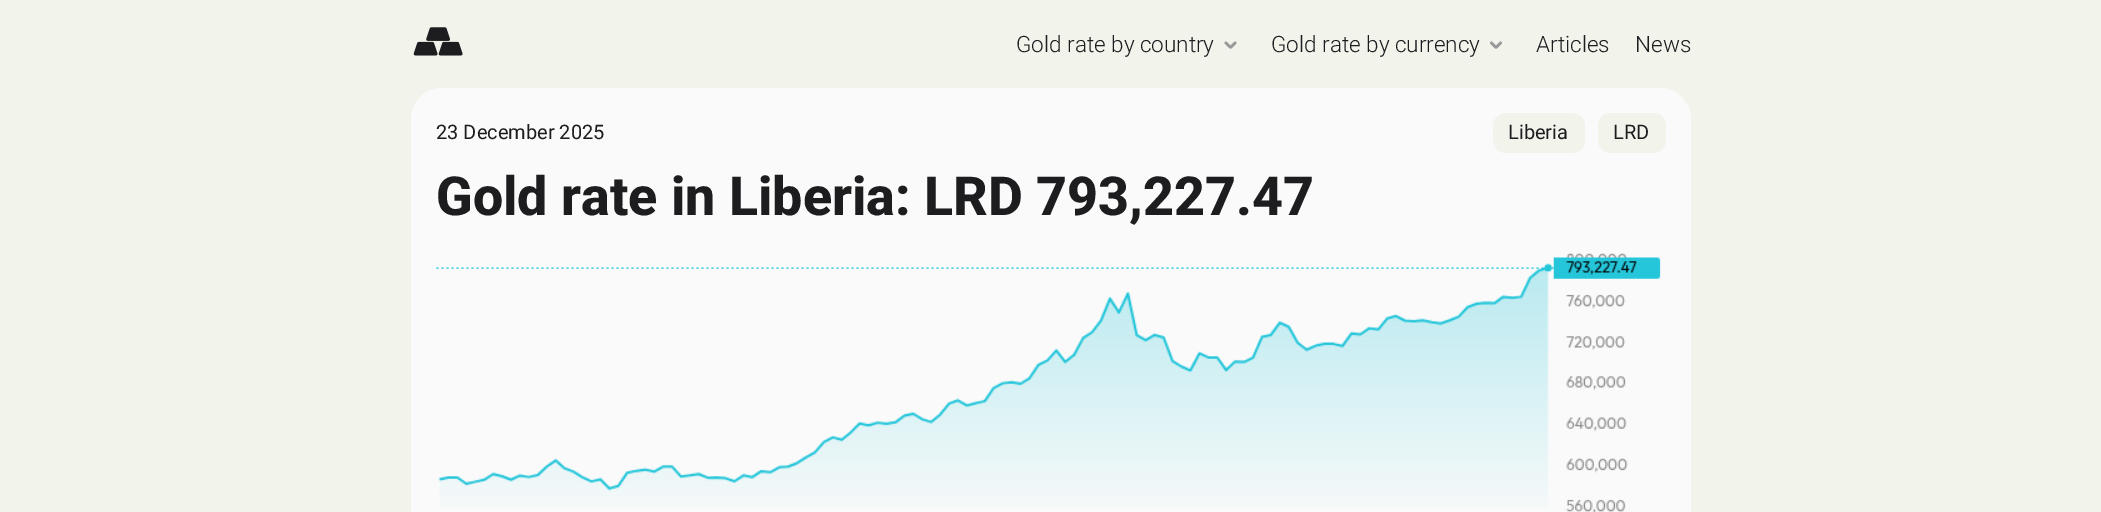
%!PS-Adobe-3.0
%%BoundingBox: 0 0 2101 512
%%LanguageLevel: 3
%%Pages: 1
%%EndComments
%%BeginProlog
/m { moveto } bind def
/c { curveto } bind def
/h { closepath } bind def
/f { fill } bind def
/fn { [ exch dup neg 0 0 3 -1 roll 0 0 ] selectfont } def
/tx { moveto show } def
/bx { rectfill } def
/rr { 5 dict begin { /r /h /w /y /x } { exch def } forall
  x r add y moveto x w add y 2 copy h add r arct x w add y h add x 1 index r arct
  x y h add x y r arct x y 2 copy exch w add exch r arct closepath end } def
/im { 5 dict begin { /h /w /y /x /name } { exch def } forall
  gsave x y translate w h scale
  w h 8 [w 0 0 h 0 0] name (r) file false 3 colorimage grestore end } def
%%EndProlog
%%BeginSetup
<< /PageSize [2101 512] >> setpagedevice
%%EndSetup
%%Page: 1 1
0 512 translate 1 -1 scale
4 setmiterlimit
0.949 0.957 0.925 setrgbcolor
0 0 2101 512 bx
(image0.raw) 413 27 50 29 im
/Roboto-Light 22.5 fn
0.114 0.114 0.122 setrgbcolor
(Gold rate by country) 1016 52 tx
0.6 setgray
1225 42 m 1226.5 40.5 1228 43.5 1229 44 c 1229.5 45 1232.5 46.5 1231 48 c 1230 49.5 1228 46.5 1227 46 c 1226.5 45 1223.5 43.5 1225 42 c h f
1236 42 m 1237.5 43.5 1234.5 45 1234 46 c 1233 46.5 1231.5 49.5 1230 48 c 1228.5 46.5 1231.5 45 1232 44 c 1233 43.5 1235 40.5 1236 42 c h f
0.114 0.114 0.122 setrgbcolor
(Gold rate by currency) 1271 52 tx
0.6 setgray
1490.5 42 m 1492 40.5 1493.5 43.5 1494.5 44 c 1495 45 1498 46.5 1496.5 48 c 1495 49.5 1493.5 46.5 1492.5 46 c 1492 45 1489 43.5 1490.5 42 c h f
1501.5 42 m 1503 43.5 1500 45 1499.5 46 c 1498.5 46.5 1497 49.5 1495.5 48 c 1494 46.5 1497 45 1497.5 44 c 1498.5 43.5 1500 40.5 1501.5 42 c h f
0.114 0.114 0.122 setrgbcolor
(Articles) 1536 52 tx
(News) 1635 52 tx
0.98 setgray
411 88 1280 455 31 rr f
/Roboto-Regular 20 fn
0.114 0.114 0.122 setrgbcolor
(23 December 2025) 436 139 tx
0.949 0.957 0.925 setrgbcolor
1493 113 92 40 13 rr f
0.114 0.114 0.122 setrgbcolor
(Liberia) 1508 139 tx
0.949 0.957 0.925 setrgbcolor
1598 113 68 40 13 rr f
0.114 0.114 0.122 setrgbcolor
(LRD) 1613 139 tx
/Roboto-ExtraBold 53.75 fn
(Gold rate in Liberia: LRD 793,227.47) 436 215 tx
(image2.raw) 436 266 1118 242 im
(image1.raw) 1543 263 10 10 im
(image3.raw) 1553 253 108 259 im
showpage
%%EOF
